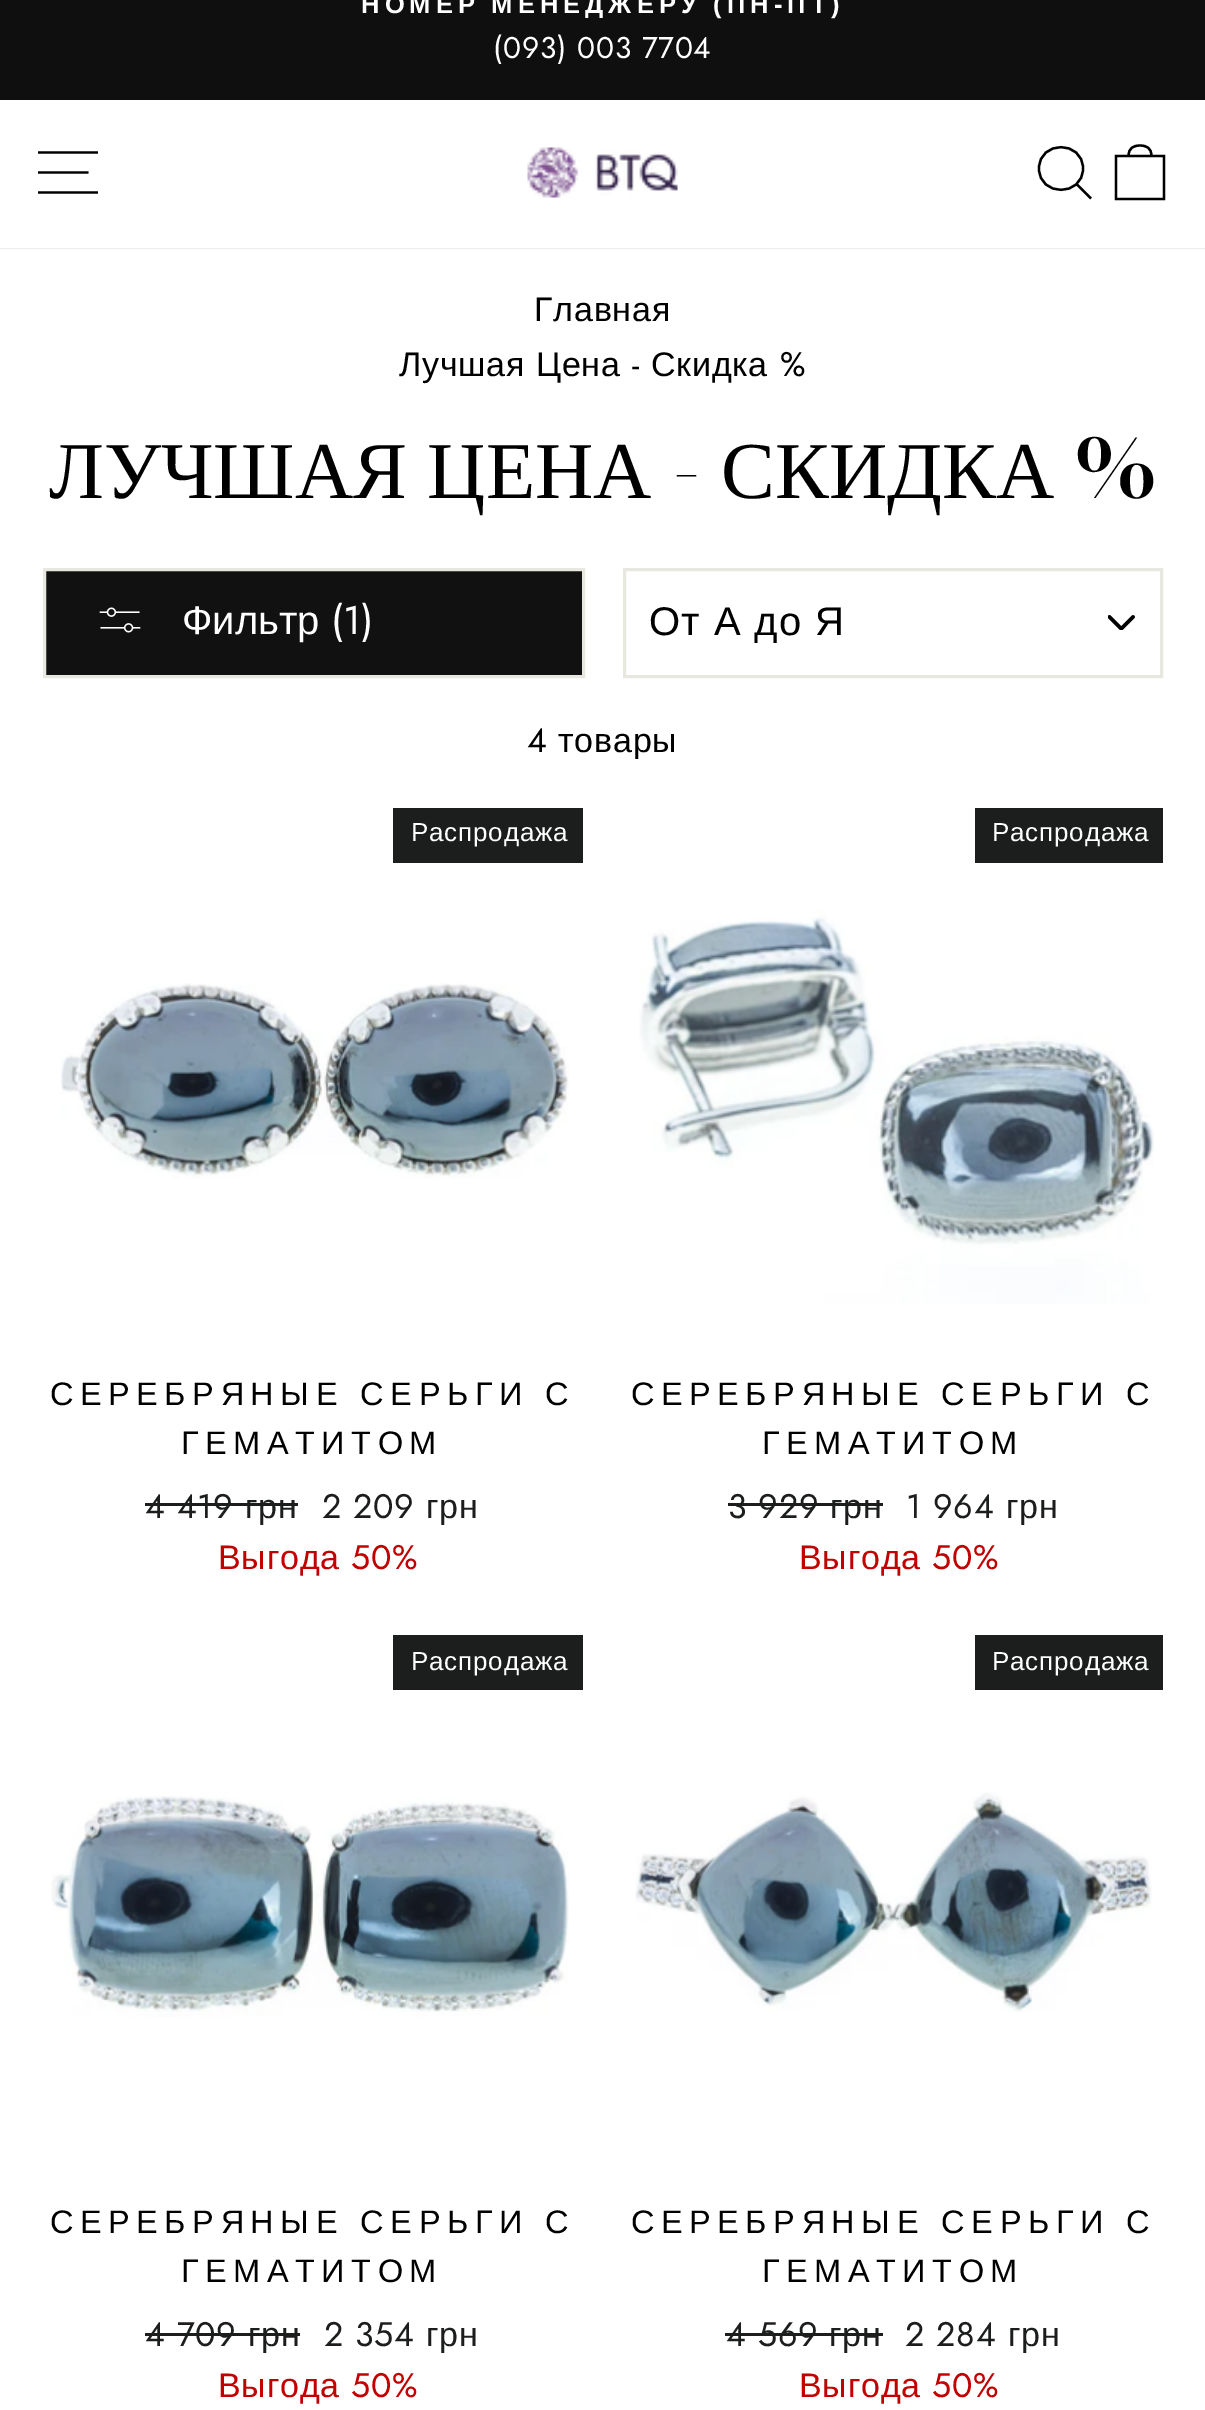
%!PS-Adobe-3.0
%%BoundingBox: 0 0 1205 2410
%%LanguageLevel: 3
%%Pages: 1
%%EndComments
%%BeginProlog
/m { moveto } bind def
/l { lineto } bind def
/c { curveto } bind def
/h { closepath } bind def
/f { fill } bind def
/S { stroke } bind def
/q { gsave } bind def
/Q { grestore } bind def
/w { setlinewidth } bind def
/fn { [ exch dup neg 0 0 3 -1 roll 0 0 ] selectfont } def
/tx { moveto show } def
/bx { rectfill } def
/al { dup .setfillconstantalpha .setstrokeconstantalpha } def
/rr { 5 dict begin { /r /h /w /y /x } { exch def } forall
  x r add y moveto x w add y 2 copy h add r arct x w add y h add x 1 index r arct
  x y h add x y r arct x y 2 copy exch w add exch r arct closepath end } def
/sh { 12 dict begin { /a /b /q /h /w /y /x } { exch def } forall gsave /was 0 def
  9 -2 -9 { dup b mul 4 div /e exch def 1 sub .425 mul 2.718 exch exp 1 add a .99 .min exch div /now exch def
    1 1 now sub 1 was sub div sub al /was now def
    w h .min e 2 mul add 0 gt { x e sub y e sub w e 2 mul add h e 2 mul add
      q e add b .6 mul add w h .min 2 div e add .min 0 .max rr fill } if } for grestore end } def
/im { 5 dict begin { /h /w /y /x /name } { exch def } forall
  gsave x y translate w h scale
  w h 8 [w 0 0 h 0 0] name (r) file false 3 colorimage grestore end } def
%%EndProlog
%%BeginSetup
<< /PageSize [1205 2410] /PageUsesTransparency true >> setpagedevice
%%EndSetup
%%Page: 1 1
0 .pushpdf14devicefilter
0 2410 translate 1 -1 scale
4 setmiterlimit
1 setgray
0 0 1205 2410 bx
0.059 setgray
0 0 1205 100 bx
/LiberationSans-Bold 25.5 fn
1 setgray
361 13 m -1 0 32 5.1 0 (НОМЕР МЕНЕДЖЕРУ \(ПН-ПТ\)) awidthshow
/Jost-Regular 30 fn
493 58 m 0.8 0 (\(093\) 003 7704) ashow
0 setgray
0 100 1205 148 0 1 0.2 sh
1 setgray
0 100 1205 148 bx
0 setgray
2.3 w
38 152.5 m 98 152.5 l 38 172.5 m 88.5 172.5 l 38 192.5 m 98 192.5 l S
(image0.raw) 527 147 151 51 im
1083 168.5 m 1083 197 1039 197 1039 168.5 c 1039 140 1083 140 1083 168.5 c h 1091 198.5 m 1076.5 184 l S
1116 156 m 1164 156 l 1164 199 l 1116 199 l h 1128.5 156 m 1128.5 148 1133.5 145.5 1140 145.5 c 1146.5 145.5 1151.5 148 1151.5 156 c S
/LiberationSans-Regular 34 fn
534 321 m 0.8 0 (Главная) ashow
399 376 m 0.8 0 (Лучшая Цена) ashow
/Jost-Regular 34 fn
632 376 m 0.8 0 (-) ashow
/LiberationSans-Regular 34 fn
651 376 m 0.8 0 (Скидка) ashow
/Jost-Regular 34 fn
780 376 m 0.8 0 (%) ashow
/LiberationSerif-Regular 80.75 fn
(ЛУЧШАЯ ЦЕНА) 49 498 tx
/BodoniModa-Medium 80.75 fn
(-) 672 498 tx
/LiberationSerif-Regular 80.75 fn
(СКИДКА) 721 498 tx
/BodoniModa-Medium 80.75 fn
(%) 1075 498 tx
0.067 setgray
44.5 569.5 m 583.5 569.5 l 583.5 676.5 l 44.5 676.5 l h q f Q
0.91 0.91 0.882 setrgbcolor
3 w
S
(image1.raw) 99 607 42 26 im
/LiberationSans-Regular 40 fn
1 setgray
(Фильтр) 182 634 tx
/Jost-Regular 40 fn
(\(1\)) 331 634 tx
(image2.raw) 1108 615 27 15 im
0.91 0.91 0.882 setrgbcolor
624.5 569.5 537 107 rectstroke
/LiberationSans-Regular 40 fn
0 setgray
649 635 m 1 0 32 1 0 (От А до Я) awidthshow
/Jost-Regular 34 fn
527 752 m 0.8 0 (4) ashow
/LiberationSans-Regular 34 fn
558 752 m 0.8 0 (товары) ashow
0.11 0.114 0.114 setrgbcolor
393 808 190 55 bx
/LiberationSans-Regular 26 fn
1 setgray
411 841 m 0.8 0 (Распродажа) ashow
(image3.raw) 60 983 509 196 im
/LiberationSans-Regular 32.5 fn
0 setgray
50 1405 m 1 0 32 6.5 0 (СЕРЕБРЯНЫЕ СЕРЬГИ С) awidthshow
181 1454 m 6.5 0 (ГЕМАТИТОМ) ashow
/Jost-Regular 34 fn
0.11 0.114 0.114 setrgbcolor
145 1518 m 0.8 0 (4 419) ashow
145 1503 153 3 bx
/LiberationSans-Regular 34 fn
245 1518 m 0.8 0 (грн) ashow
/Jost-Regular 34 fn
322 1518 m 0.8 0 (2 209) ashow
/LiberationSans-Regular 34 fn
426 1518 m 0.8 0 (грн) ashow
0.761 0 0 setrgbcolor
218 1569 m 0.8 0 (Выгода) ashow
/Jost-Regular 34 fn
351 1569 m 0.8 0 (50%) ashow
0.11 0.114 0.114 setrgbcolor
975 808 188 55 bx
/LiberationSans-Regular 26 fn
1 setgray
992 841 m 0.8 0 (Распродажа) ashow
(image4.raw) 639 910 515 394 im
/LiberationSans-Regular 32.5 fn
0 setgray
631 1405 m 1 0 32 6.5 0 (СЕРЕБРЯНЫЕ СЕРЬГИ С) awidthshow
762 1454 m 6.5 0 (ГЕМАТИТОМ) ashow
/Jost-Regular 34 fn
0.11 0.114 0.114 setrgbcolor
728 1518 m 0.8 0 (3 929) ashow
728 1503 155 3 bx
/LiberationSans-Regular 34 fn
830 1518 m 0.8 0 (грн) ashow
/Jost-Regular 34 fn
906 1518 m 0.8 0 (1 964) ashow
/LiberationSans-Regular 34 fn
1006 1518 m 0.8 0 (грн) ashow
0.761 0 0 setrgbcolor
799 1569 m 0.8 0 (Выгода) ashow
/Jost-Regular 34 fn
932 1569 m 0.8 0 (50%) ashow
0.11 0.114 0.114 setrgbcolor
393 1635 190 55 bx
/LiberationSans-Regular 26 fn
1 setgray
411 1670 m 0.8 0 (Распродажа) ashow
(image5.raw) 51 1796 518 221 im
/LiberationSans-Regular 32.5 fn
0 setgray
50 2233 m 1 0 32 6.5 0 (СЕРЕБРЯНЫЕ СЕРЬГИ С) awidthshow
181 2282 m 6.5 0 (ГЕМАТИТОМ) ashow
/Jost-Regular 34 fn
0.11 0.114 0.114 setrgbcolor
145 2346 m 0.8 0 (4 709) ashow
145 2333 155 3 bx
/LiberationSans-Regular 34 fn
248 2346 m 0.8 0 (грн) ashow
/Jost-Regular 34 fn
324 2346 m 0.8 0 (2 354) ashow
/LiberationSans-Regular 34 fn
426 2346 m 0.8 0 (грн) ashow
0.761 0 0 setrgbcolor
218 2397 m 0.8 0 (Выгода) ashow
/Jost-Regular 34 fn
351 2397 m 0.8 0 (50%) ashow
0.11 0.114 0.114 setrgbcolor
975 1635 188 55 bx
/LiberationSans-Regular 26 fn
1 setgray
992 1670 m 0.8 0 (Распродажа) ashow
(image6.raw) 635 1792 517 220 im
/LiberationSans-Regular 32.5 fn
0 setgray
631 2233 m 1 0 32 6.5 0 (СЕРЕБРЯНЫЕ СЕРЬГИ С) awidthshow
762 2282 m 6.5 0 (ГЕМАТИТОМ) ashow
/Jost-Regular 34 fn
0.11 0.114 0.114 setrgbcolor
726 2346 m 0.8 0 (4 569) ashow
725 2333 158 3 bx
/LiberationSans-Regular 34 fn
829 2346 m 0.8 0 (грн) ashow
/Jost-Regular 34 fn
905 2346 m 0.8 0 (2 284) ashow
/LiberationSans-Regular 34 fn
1008 2346 m 0.8 0 (грн) ashow
0.761 0 0 setrgbcolor
799 2397 m 0.8 0 (Выгода) ashow
/Jost-Regular 34 fn
932 2397 m 0.8 0 (50%) ashow
.poppdf14devicefilter showpage
%%EOF
